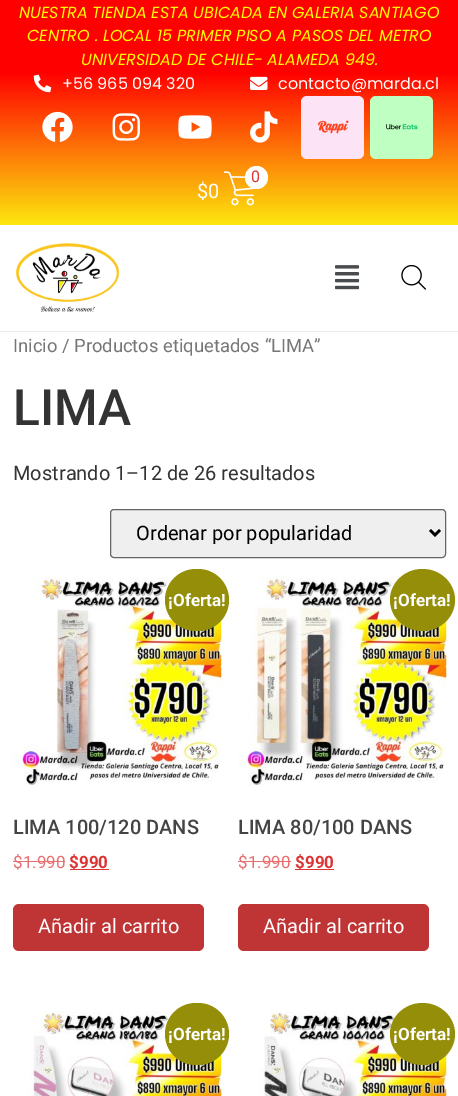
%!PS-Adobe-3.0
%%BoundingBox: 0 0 458 1096
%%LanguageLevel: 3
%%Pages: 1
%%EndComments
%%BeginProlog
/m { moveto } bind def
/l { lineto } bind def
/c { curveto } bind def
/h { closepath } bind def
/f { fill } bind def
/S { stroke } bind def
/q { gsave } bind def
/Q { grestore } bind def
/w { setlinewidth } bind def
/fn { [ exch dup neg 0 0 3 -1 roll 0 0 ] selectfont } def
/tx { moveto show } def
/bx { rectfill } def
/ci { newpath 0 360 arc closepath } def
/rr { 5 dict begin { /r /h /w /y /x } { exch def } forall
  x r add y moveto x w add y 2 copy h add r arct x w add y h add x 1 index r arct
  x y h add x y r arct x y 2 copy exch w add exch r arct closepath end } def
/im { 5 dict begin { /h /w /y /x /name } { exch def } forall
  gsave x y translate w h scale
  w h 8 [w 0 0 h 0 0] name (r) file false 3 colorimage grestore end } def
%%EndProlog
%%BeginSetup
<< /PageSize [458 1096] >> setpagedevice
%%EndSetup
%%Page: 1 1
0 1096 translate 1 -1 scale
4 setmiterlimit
1 setgray
0 0 458 1096 bx
1 0 0 setrgbcolor
0 0 458 73 bx
/Poppins-Italic 16 fn
1 0.984 0 setrgbcolor
(NUESTRA TIENDA ESTA UBICADA EN GALERIA SANTIAGO) 19 18 tx
(CENTRO . LOCAL 15 PRIMER PISO A PASOS DEL METRO) 27 41 tx
(UNIVERSIDAD DE CHILE- ALAMEDA 949.) 81 65 tx
q 0 73 m 458 73 l 458 225 l 0 225 l h clip newpath
<< /ShadingType 2 /ColorSpace /DeviceRGB /Coords [229 72 229 225] /Extend [true true] /Function << /FunctionType 2 /Domain [0 1] /C0 [1 0 0] /C1 [0.988 0.906 0.055] /N 1 >> >> shfill Q
(image0.raw) 33 74 19 19 im
/Poppins-Regular 16 fn
1 setgray
(+56 965 094 320) 62 89 tx
(image1.raw) 250 76 18 14 im
(contacto@marda.cl) 278 89 tx
(image2.raw) 42 111 31 31 im
(image3.raw) 112 113 28 28 im
(image4.raw) 178 115 34 24 im
(image5.raw) 250 111 28 32 im
0.988 0.894 0.965 setrgbcolor
301 96 63 63 6 rr f
(image6.raw) 318 120 31 14 im
0.753 1 0.761 setrgbcolor
370 96 63 63 6 rr f
(image7.raw) 386 124 32 6 im
(image8.raw) 223 171 33 35 im
1 setgray
256.5 177.5 11.5 ci f
/Roboto-Regular 16 fn
0.867 0.2 0.2 setrgbcolor
(0) 251 182 tx
/Roboto-Regular 20 fn
1 setgray
($0) 197 198 tx
0.918 setgray
0 331 458 1 bx
(image9.raw) 16 243 103 69 im
(image10.raw) 335 265 25 25 im
(image11.raw) 401 265 25 25 im
/Roboto-Regular 18.4 fn
0.463 setgray
(Inicio / Productos etiquetados “LIMA”) 13 352 tx
/Roboto-Medium 50 fn
0.2 setgray
(LIMA) 13 425 tx
/Roboto-Regular 20 fn
(Mostrando 1–12 de 26 resultados) 13 480 tx
0.937 setgray
110.5 509.5 335 48 3.5 rr q f Q
0.4 setgray
S
0 setgray
2.5 w
430 530 m 435 535 l 440 530 l S
(Ordenar por popularidad) 136 540 tx
(image12.raw) 12 577 210 208 im
0.584 0.557 0.035 setrgbcolor
165 569 64 62 31 rr f
/Roboto-Bold 17 fn
1 setgray
(¡Oferta!) 168 606 tx
/Roboto-Medium 20 fn
0.267 setgray
(LIMA 100/120 DANS) 13 834 tx
/Roboto-Regular 17 fn
0.906 0.439 0.439 setrgbcolor
($1.990) 13 868 tx
13 861 52 1 bx
0.867 0.2 0.2 setrgbcolor
70 869 39 1 bx
/Roboto-Bold 17 fn
($990) 69 868 tx
0.749 0.208 0.208 setrgbcolor
13 904 191 47 6 rr f
/Roboto-Regular 20 fn
1 setgray
(Añadir al carrito) 38 933 tx
(image13.raw) 237 577 210 208 im
0.584 0.557 0.035 setrgbcolor
422.5 569 m 440.5 569 455 583 455 600 c 455 617 440.5 631 422.5 631 c 404.5 631 390 617 390 600 c 390 583 404.5 569 422.5 569 c h f
/Roboto-Bold 17 fn
1 setgray
(¡Oferta!) 393 606 tx
/Roboto-Medium 20 fn
0.267 setgray
(LIMA 80/100 DANS) 238 834 tx
/Roboto-Regular 17 fn
0.906 0.439 0.439 setrgbcolor
($1.990) 238 868 tx
238 861 53 1 bx
0.867 0.2 0.2 setrgbcolor
295 869 39 1 bx
/Roboto-Bold 17 fn
($990) 295 868 tx
0.749 0.208 0.208 setrgbcolor
238 904 191 47 6 rr f
/Roboto-Regular 20 fn
1 setgray
(Añadir al carrito) 263 933 tx
(image14.raw) 29 1011 193 85 im
0.584 0.557 0.035 setrgbcolor
165 1003 64 62 31 rr f
/Roboto-Bold 17 fn
1 setgray
(¡Oferta!) 168 1040 tx
(image15.raw) 260 1011 187 85 im
0.584 0.557 0.035 setrgbcolor
422.5 1003 m 440.5 1003 455 1017 455 1034 c 455 1051 440.5 1065 422.5 1065 c 404.5 1065 390 1051 390 1034 c 390 1017 404.5 1003 422.5 1003 c h f
1 setgray
(¡Oferta!) 393 1040 tx
showpage
%%EOF
